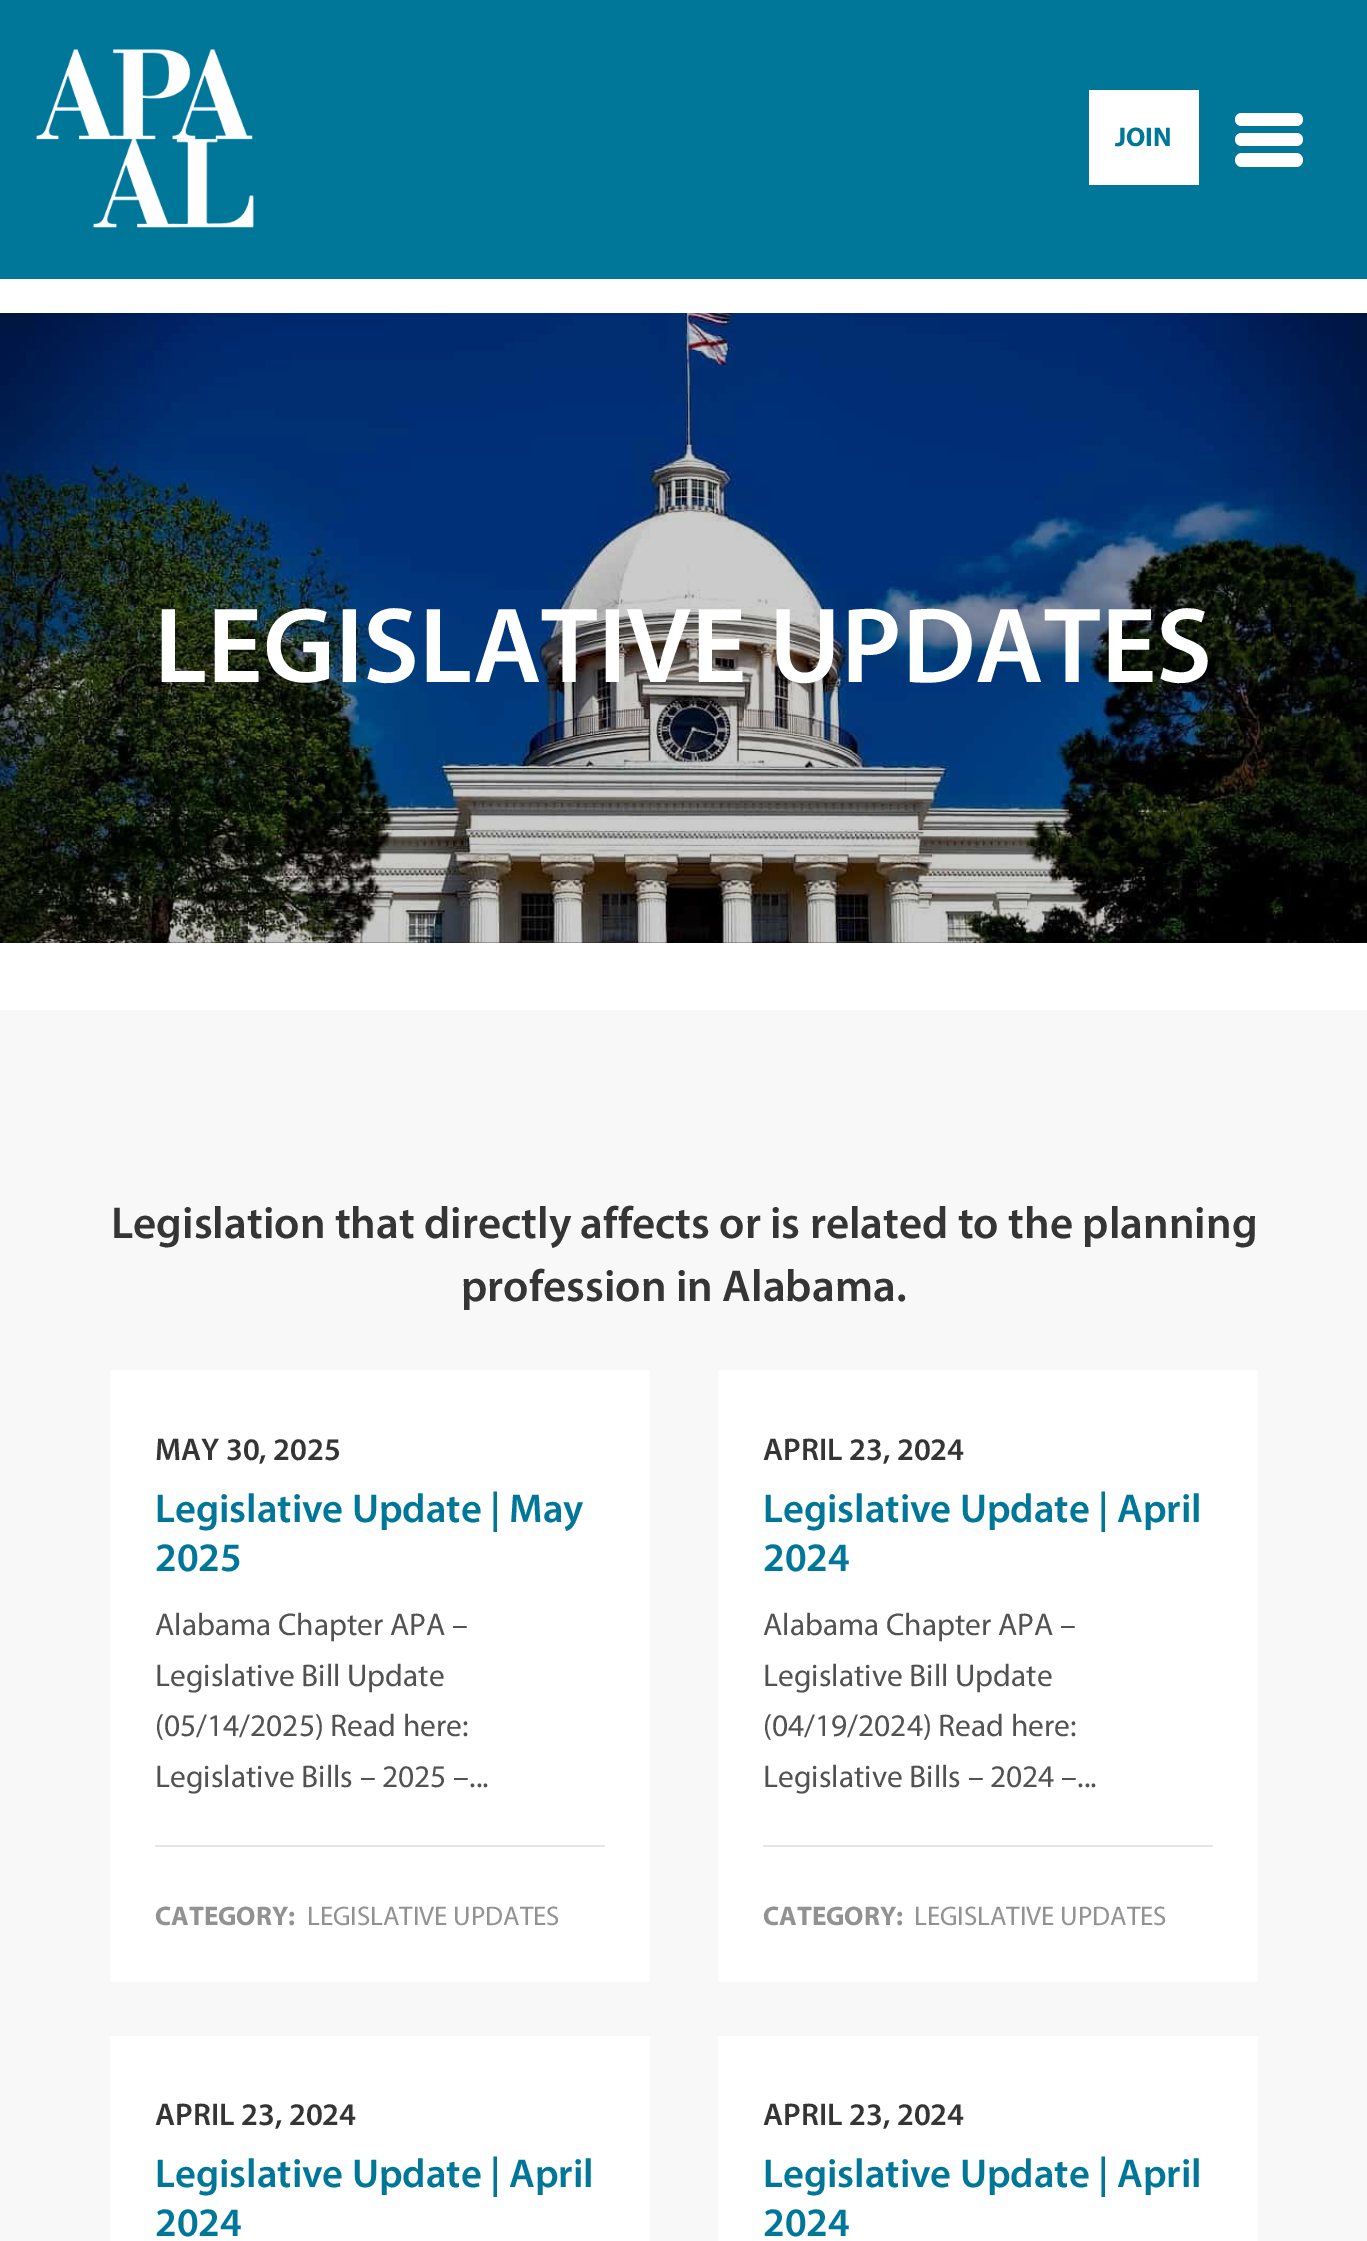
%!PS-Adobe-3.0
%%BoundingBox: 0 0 1367 2241
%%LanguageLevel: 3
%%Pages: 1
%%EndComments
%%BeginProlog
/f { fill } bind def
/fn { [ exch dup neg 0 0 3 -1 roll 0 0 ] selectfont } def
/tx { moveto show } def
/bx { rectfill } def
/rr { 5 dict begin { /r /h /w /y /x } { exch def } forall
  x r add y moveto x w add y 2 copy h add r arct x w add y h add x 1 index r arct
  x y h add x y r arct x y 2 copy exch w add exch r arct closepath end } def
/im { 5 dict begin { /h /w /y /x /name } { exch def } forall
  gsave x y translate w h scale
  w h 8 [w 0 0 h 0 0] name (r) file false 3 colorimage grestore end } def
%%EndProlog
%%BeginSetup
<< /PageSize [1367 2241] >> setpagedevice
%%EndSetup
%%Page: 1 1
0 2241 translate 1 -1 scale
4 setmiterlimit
1 setgray
0 0 1367 2241 bx
0 0.463 0.6 setrgbcolor
0 0 1367 279 bx
(image0.raw) 36 49 218 179 im
1 setgray
1089 90 110 95 bx
/Myriad-Bold 27 fn
0 0.463 0.6 setrgbcolor
(JOIN) 1115 146 tx
1 setgray
1235 113 68 13 6.5 rr f
1235 133 68 13 6.5 rr f
1235 153 68 14 7 rr f
0 setgray
0 313 1367 630 bx
(image1.raw) 0 313 1367 630 im
/Myriad-SemiBold 108 fn
1 setgray
(LEGISLATIVE UPDATES) 154 682 tx
0.973 setgray
0 1010 1367 1231 bx
/Myriad-SemiBold 45 fn
0.208 setgray
(Legislation that directly affects or is related to the planning) 111 1238 tx
(profession in Alabama.) 461 1301 tx
1 setgray
110 1370 540 612 bx
/Myriad-SemiBold 31.5 fn
0.208 setgray
(MAY 30, 2025) 155 1460 tx
/Myriad-SemiBold 40.5 fn
0 0.463 0.6 setrgbcolor
(Legislative Update | May) 155 1522 tx
(2025) 155 1571 tx
/Myriad-Regular 31.5 fn
0.322 setgray
(Alabama Chapter APA –) 155 1635 tx
(Legislative Bill Update) 155 1686 tx
(\(05/14/2025\) Read here:) 155 1736 tx
(Legislative Bills – 2025 –...) 155 1787 tx
0.898 setgray
155 1845 450 2 bx
/Myriad-Bold 27 fn
0.573 setgray
(CATEGORY:) 155 1925 tx
/Myriad-Regular 27 fn
(LEGISLATIVE UPDATES) 307 1925 tx
1 setgray
718 1370 540 612 bx
/Myriad-SemiBold 31.5 fn
0.208 setgray
(APRIL 23, 2024) 763 1460 tx
/Myriad-SemiBold 40.5 fn
0 0.463 0.6 setrgbcolor
(Legislative Update | April) 763 1522 tx
(2024) 763 1571 tx
/Myriad-Regular 31.5 fn
0.322 setgray
(Alabama Chapter APA –) 763 1635 tx
(Legislative Bill Update) 763 1686 tx
(\(04/19/2024\) Read here:) 763 1736 tx
(Legislative Bills – 2024 –...) 763 1787 tx
0.898 setgray
763 1845 450 2 bx
/Myriad-Bold 27 fn
0.573 setgray
(CATEGORY:) 763 1925 tx
/Myriad-Regular 27 fn
(LEGISLATIVE UPDATES) 914 1925 tx
1 setgray
110 2036 540 205 bx
/Myriad-SemiBold 31.5 fn
0.208 setgray
(APRIL 23, 2024) 155 2125 tx
/Myriad-SemiBold 40.5 fn
0 0.463 0.6 setrgbcolor
(Legislative Update | April) 155 2187 tx
(2024) 155 2236 tx
1 setgray
718 2036 540 205 bx
/Myriad-SemiBold 31.5 fn
0.208 setgray
(APRIL 23, 2024) 763 2125 tx
/Myriad-SemiBold 40.5 fn
0 0.463 0.6 setrgbcolor
(Legislative Update | April) 763 2187 tx
(2024) 763 2236 tx
showpage
%%EOF
